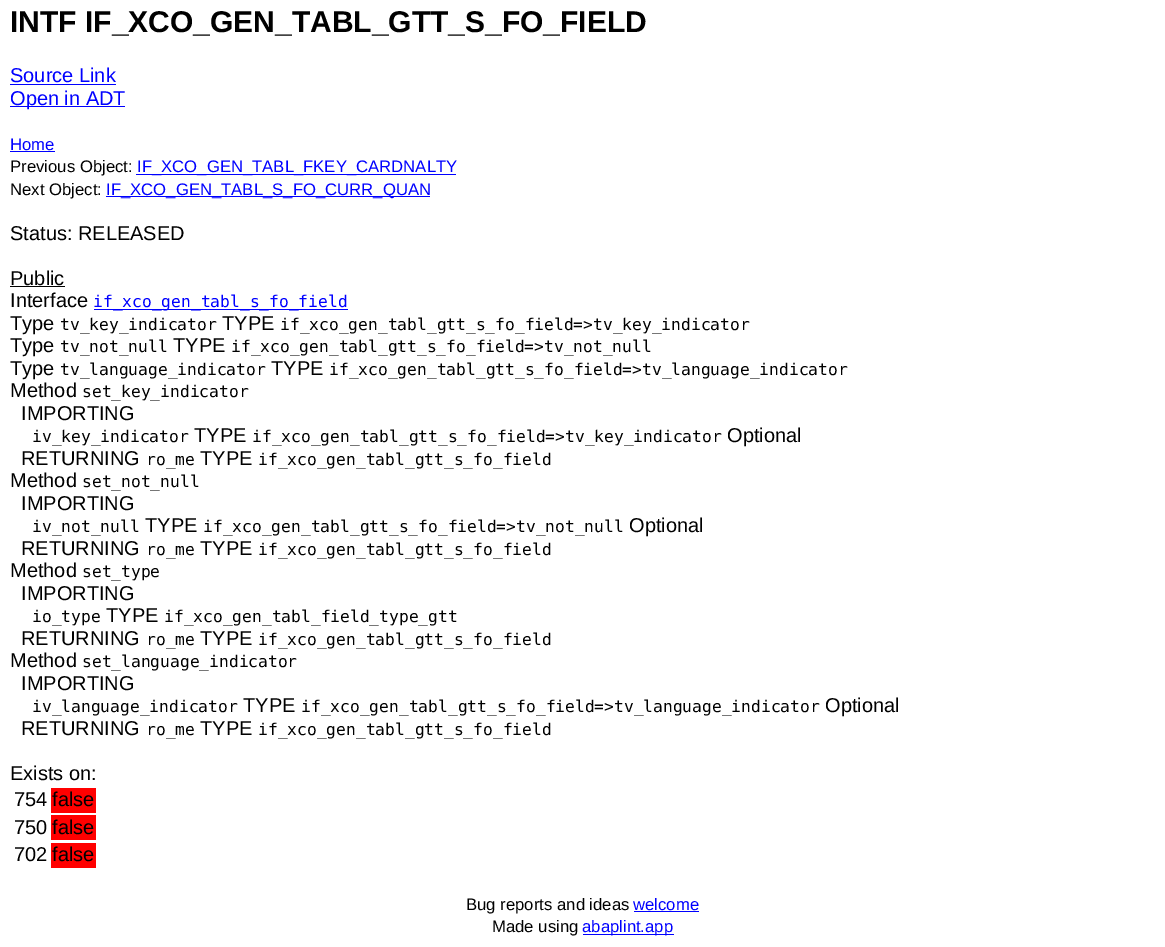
%!PS-Adobe-3.0
%%BoundingBox: 0 0 1165 947
%%LanguageLevel: 3
%%Pages: 1
%%EndComments
%%BeginProlog
/fn { [ exch dup neg 0 0 3 -1 roll 0 0 ] selectfont } def
/tx { moveto show } def
/bx { rectfill } def
%%EndProlog
%%BeginSetup
<< /PageSize [1165 947] >> setpagedevice
%%EndSetup
%%Page: 1 1
0 947 translate 1 -1 scale
4 setmiterlimit
1 setgray
0 0 1165 947 bx
/LiberationSans-Bold 30 fn
0 setgray
(INTF IF_XCO_GEN_TABL_GTT_S_FO_FIELD) 10 32 tx
/LiberationSans-Regular 20 fn
0 0 1 setrgbcolor
(Source Link) 10 82 tx
10 84 106 1 bx
10 106 115 1 bx
(Open in ADT) 10 105 tx
/LiberationSans-Regular 16.7 fn
(Home) 10 150 tx
10 151 45 1 bx
0 setgray
(Previous Object:) 10 172 tx
0 0 1 setrgbcolor
136 174 320 1 bx
(IF_XCO_GEN_TABL_FKEY_CARDNALTY) 137 172 tx
0 setgray
(Next Object:) 10 195 tx
0 0 1 setrgbcolor
106 196 324 1 bx
(IF_XCO_GEN_TABL_S_FO_CURR_QUAN) 106 195 tx
/LiberationSans-Regular 20 fn
0 setgray
(Status: RELEASED) 10 240 tx
(Public) 10 285 tx
10 286 55 1 bx
(Interface) 10 307 tx
0 0 1 setrgbcolor
94 309 254 1 bx
/DejaVuSansMono-Regular 16.25 fn
(if_xco_gen_tabl_s_fo_field) 93 307 tx
/LiberationSans-Regular 20 fn
0 setgray
(Type) 10 330 tx
/DejaVuSansMono-Regular 16.25 fn
(tv_key_indicator) 60 330 tx
/LiberationSans-Regular 20 fn
(TYPE) 222 330 tx
/DejaVuSansMono-Regular 16.25 fn
(if_xco_gen_tabl_gtt_s_fo_field=>tv_key_indicator) 280 330 tx
/LiberationSans-Regular 20 fn
(Type) 10 352 tx
/DejaVuSansMono-Regular 16.25 fn
(tv_not_null) 60 352 tx
/LiberationSans-Regular 20 fn
(TYPE) 173 352 tx
/DejaVuSansMono-Regular 16.25 fn
(if_xco_gen_tabl_gtt_s_fo_field=>tv_not_null) 231 352 tx
/LiberationSans-Regular 20 fn
(Type) 10 375 tx
/DejaVuSansMono-Regular 16.25 fn
(tv_language_indicator) 60 375 tx
/LiberationSans-Regular 20 fn
(TYPE) 271 375 tx
/DejaVuSansMono-Regular 16.25 fn
(if_xco_gen_tabl_gtt_s_fo_field=>tv_language_indicator) 329 375 tx
/LiberationSans-Regular 20 fn
(Method) 10 397 tx
/DejaVuSansMono-Regular 16.25 fn
(set_key_indicator) 82 397 tx
/LiberationSans-Regular 20 fn
(IMPORTING) 21 420 tx
/DejaVuSansMono-Regular 16.25 fn
(iv_key_indicator) 32 442 tx
/LiberationSans-Regular 20 fn
(TYPE) 194 442 tx
/DejaVuSansMono-Regular 16.25 fn
(if_xco_gen_tabl_gtt_s_fo_field=>tv_key_indicator) 252 442 tx
/LiberationSans-Regular 20 fn
(Optional) 727 442 tx
(RETURNING) 21 465 tx
/DejaVuSansMono-Regular 16.25 fn
(ro_me) 146 465 tx
/LiberationSans-Regular 20 fn
(TYPE) 200 465 tx
/DejaVuSansMono-Regular 16.25 fn
(if_xco_gen_tabl_gtt_s_fo_field) 258 465 tx
/LiberationSans-Regular 20 fn
(Method) 10 487 tx
/DejaVuSansMono-Regular 16.25 fn
(set_not_null) 82 487 tx
/LiberationSans-Regular 20 fn
(IMPORTING) 21 510 tx
/DejaVuSansMono-Regular 16.25 fn
(iv_not_null) 32 532 tx
/LiberationSans-Regular 20 fn
(TYPE) 145 532 tx
/DejaVuSansMono-Regular 16.25 fn
(if_xco_gen_tabl_gtt_s_fo_field=>tv_not_null) 203 532 tx
/LiberationSans-Regular 20 fn
(Optional) 629 532 tx
(RETURNING) 21 555 tx
/DejaVuSansMono-Regular 16.25 fn
(ro_me) 146 555 tx
/LiberationSans-Regular 20 fn
(TYPE) 200 555 tx
/DejaVuSansMono-Regular 16.25 fn
(if_xco_gen_tabl_gtt_s_fo_field) 258 555 tx
/LiberationSans-Regular 20 fn
(Method) 10 577 tx
/DejaVuSansMono-Regular 16.25 fn
(set_type) 82 577 tx
/LiberationSans-Regular 20 fn
(IMPORTING) 21 600 tx
/DejaVuSansMono-Regular 16.25 fn
(io_type) 32 622 tx
/LiberationSans-Regular 20 fn
(TYPE) 106 622 tx
/DejaVuSansMono-Regular 16.25 fn
(if_xco_gen_tabl_field_type_gtt) 164 622 tx
/LiberationSans-Regular 20 fn
(RETURNING) 21 645 tx
/DejaVuSansMono-Regular 16.25 fn
(ro_me) 146 645 tx
/LiberationSans-Regular 20 fn
(TYPE) 200 645 tx
/DejaVuSansMono-Regular 16.25 fn
(if_xco_gen_tabl_gtt_s_fo_field) 258 645 tx
/LiberationSans-Regular 20 fn
(Method) 10 667 tx
/DejaVuSansMono-Regular 16.25 fn
(set_language_indicator) 82 667 tx
/LiberationSans-Regular 20 fn
(IMPORTING) 21 690 tx
/DejaVuSansMono-Regular 16.25 fn
(iv_language_indicator) 32 712 tx
/LiberationSans-Regular 20 fn
(TYPE) 243 712 tx
/DejaVuSansMono-Regular 16.25 fn
(if_xco_gen_tabl_gtt_s_fo_field=>tv_language_indicator) 301 712 tx
/LiberationSans-Regular 20 fn
(Optional) 825 712 tx
(RETURNING) 21 735 tx
/DejaVuSansMono-Regular 16.25 fn
(ro_me) 146 735 tx
/LiberationSans-Regular 20 fn
(TYPE) 200 735 tx
/DejaVuSansMono-Regular 16.25 fn
(if_xco_gen_tabl_gtt_s_fo_field) 258 735 tx
/LiberationSans-Regular 20 fn
(Exists on:) 10 780 tx
(754) 14 806 tx
1 0 0 setrgbcolor
51 788 45 25 bx
0 setgray
(false) 52 806 tx
(750) 14 834 tx
1 0 0 setrgbcolor
51 815 45 25 bx
0 setgray
(false) 52 834 tx
(702) 14 861 tx
1 0 0 setrgbcolor
51 843 45 25 bx
0 setgray
(false) 52 861 tx
/LiberationSans-Regular 16.7 fn
(Bug reports and ideas) 466 910 tx
0 0 1 setrgbcolor
(welcome) 633 910 tx
634 911 65 1 bx
0 setgray
(Made using) 492 932 tx
0 0 1 setrgbcolor
583 934 91 1 bx
(abaplint.app) 582 932 tx
showpage
%%EOF
